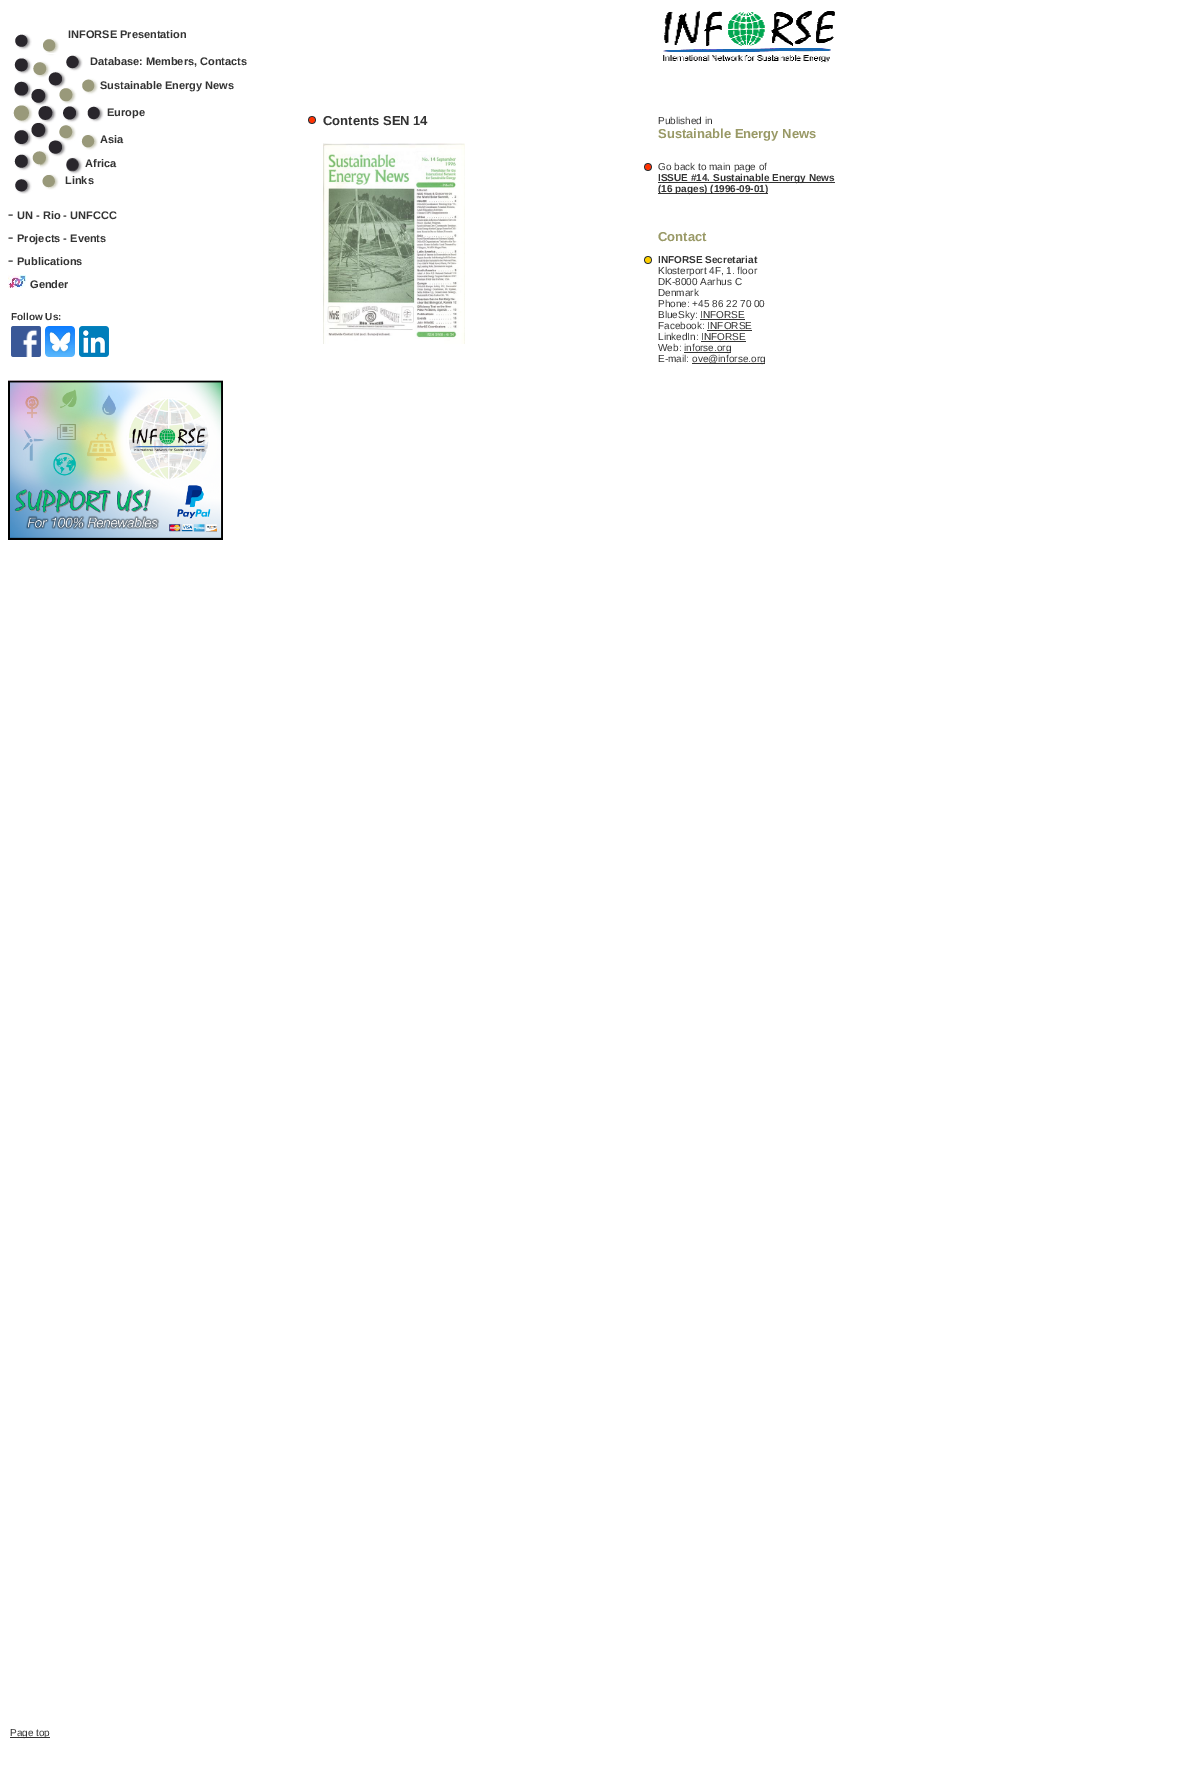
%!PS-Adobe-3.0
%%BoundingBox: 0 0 1179 1779
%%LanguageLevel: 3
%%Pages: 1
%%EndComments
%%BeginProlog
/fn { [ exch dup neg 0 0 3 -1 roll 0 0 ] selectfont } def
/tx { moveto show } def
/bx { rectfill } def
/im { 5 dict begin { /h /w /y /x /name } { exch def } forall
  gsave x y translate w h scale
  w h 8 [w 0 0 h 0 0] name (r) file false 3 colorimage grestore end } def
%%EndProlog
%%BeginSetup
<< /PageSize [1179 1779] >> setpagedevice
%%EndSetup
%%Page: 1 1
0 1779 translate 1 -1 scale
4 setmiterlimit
1 setgray
0 0 1179 1779 bx
(image0.raw) 13 34 27 160 im
/LiberationSans-Bold 11 fn
0.2 setgray
(INFORSE Presentation) 68 38 tx
(image1.raw) 43 38 16 15 im
(image2.raw) 40 54 43 21 im
(Database: Members, Contacts) 90 65 tx
(image3.raw) 40 75 58 27 im
(Sustainable Energy News) 100 89 tx
(image4.raw) 40 102 64 27 im
(Europe) 107 116 tx
(image5.raw) 40 129 58 28 im
(Asia) 100 143 tx
(image6.raw) 40 157 43 17 im
(Africa) 85 167 tx
(image7.raw) 42 174 17 16 im
(Links) 65 184 tx
/LiberationSerif-Regular 16 fn
(-) 8 219 tx
/LiberationSans-Bold 11 fn
(UN - Rio - UNFCCC) 17 219 tx
/LiberationSerif-Regular 16 fn
(-) 8 242 tx
/LiberationSans-Bold 11 fn
(Projects - Events) 17 242 tx
/LiberationSerif-Regular 16 fn
(-) 8 265 tx
/LiberationSans-Bold 11 fn
(Publications) 17 265 tx
(image8.raw) 8 275 18 13 im
(Gender) 30 288 tx
/LiberationSans-Bold 10 fn
(Follow Us:) 11 320 tx
(image9.raw) 11 326 30 31 im
(image10.raw) 45 326 30 31 im
(image11.raw) 79 326 30 31 im
(image12.raw) 8 380 215 160 im
(image13.raw) 308 116 8 8 im
/LiberationSans-Bold 13 fn
(Contents SEN 14) 323 125 tx
(image14.raw) 323 143 142 201 im
(image15.raw) 663 10 172 53 im
/LiberationSans-Regular 10 fn
(Published in) 658 124 tx
/LiberationSans-Bold 13 fn
0.6 0.6 0.4 setrgbcolor
(Sustainable Energy News) 658 138 tx
(image13.raw) 644 163 8 8 im
/LiberationSans-Regular 10 fn
0.2 setgray
(Go back to main page of) 658 170 tx
658 182 177 1 bx
/LiberationSans-Bold 10 fn
(ISSUE #14. Sustainable Energy News) 658 181 tx
658 193 110 1 bx
(\(16 pages\) \(1996-09-01\)) 658 192 tx
/LiberationSans-Bold 13 fn
0.6 0.6 0.4 setrgbcolor
(Contact) 658 241 tx
(image16.raw) 644 256 8 8 im
/LiberationSans-Bold 10 fn
0.2 setgray
(INFORSE Secretariat) 658 263 tx
/LiberationSans-Regular 10 fn
(Klosterport 4F, 1. floor) 658 274 tx
(DK-8000 Aarhus C) 658 285 tx
(Denmark) 658 296 tx
(Phone: +45 86 22 70 00) 658 307 tx
(BlueSky: INFORSE) 658 318 tx
700 319 45 1 bx
(Facebook: INFORSE) 658 329 tx
707 330 45 1 bx
(LinkedIn: INFORSE) 658 340 tx
701 341 45 1 bx
(Web:) 658 351 tx
684 352 47 1 bx
(inforse.org) 684 351 tx
(E-mail:) 658 362 tx
692 363 73 1 bx
(ove@inforse.org) 692 362 tx
10 1737 40 1 bx
(Page top) 10 1736 tx
showpage
%%EOF
